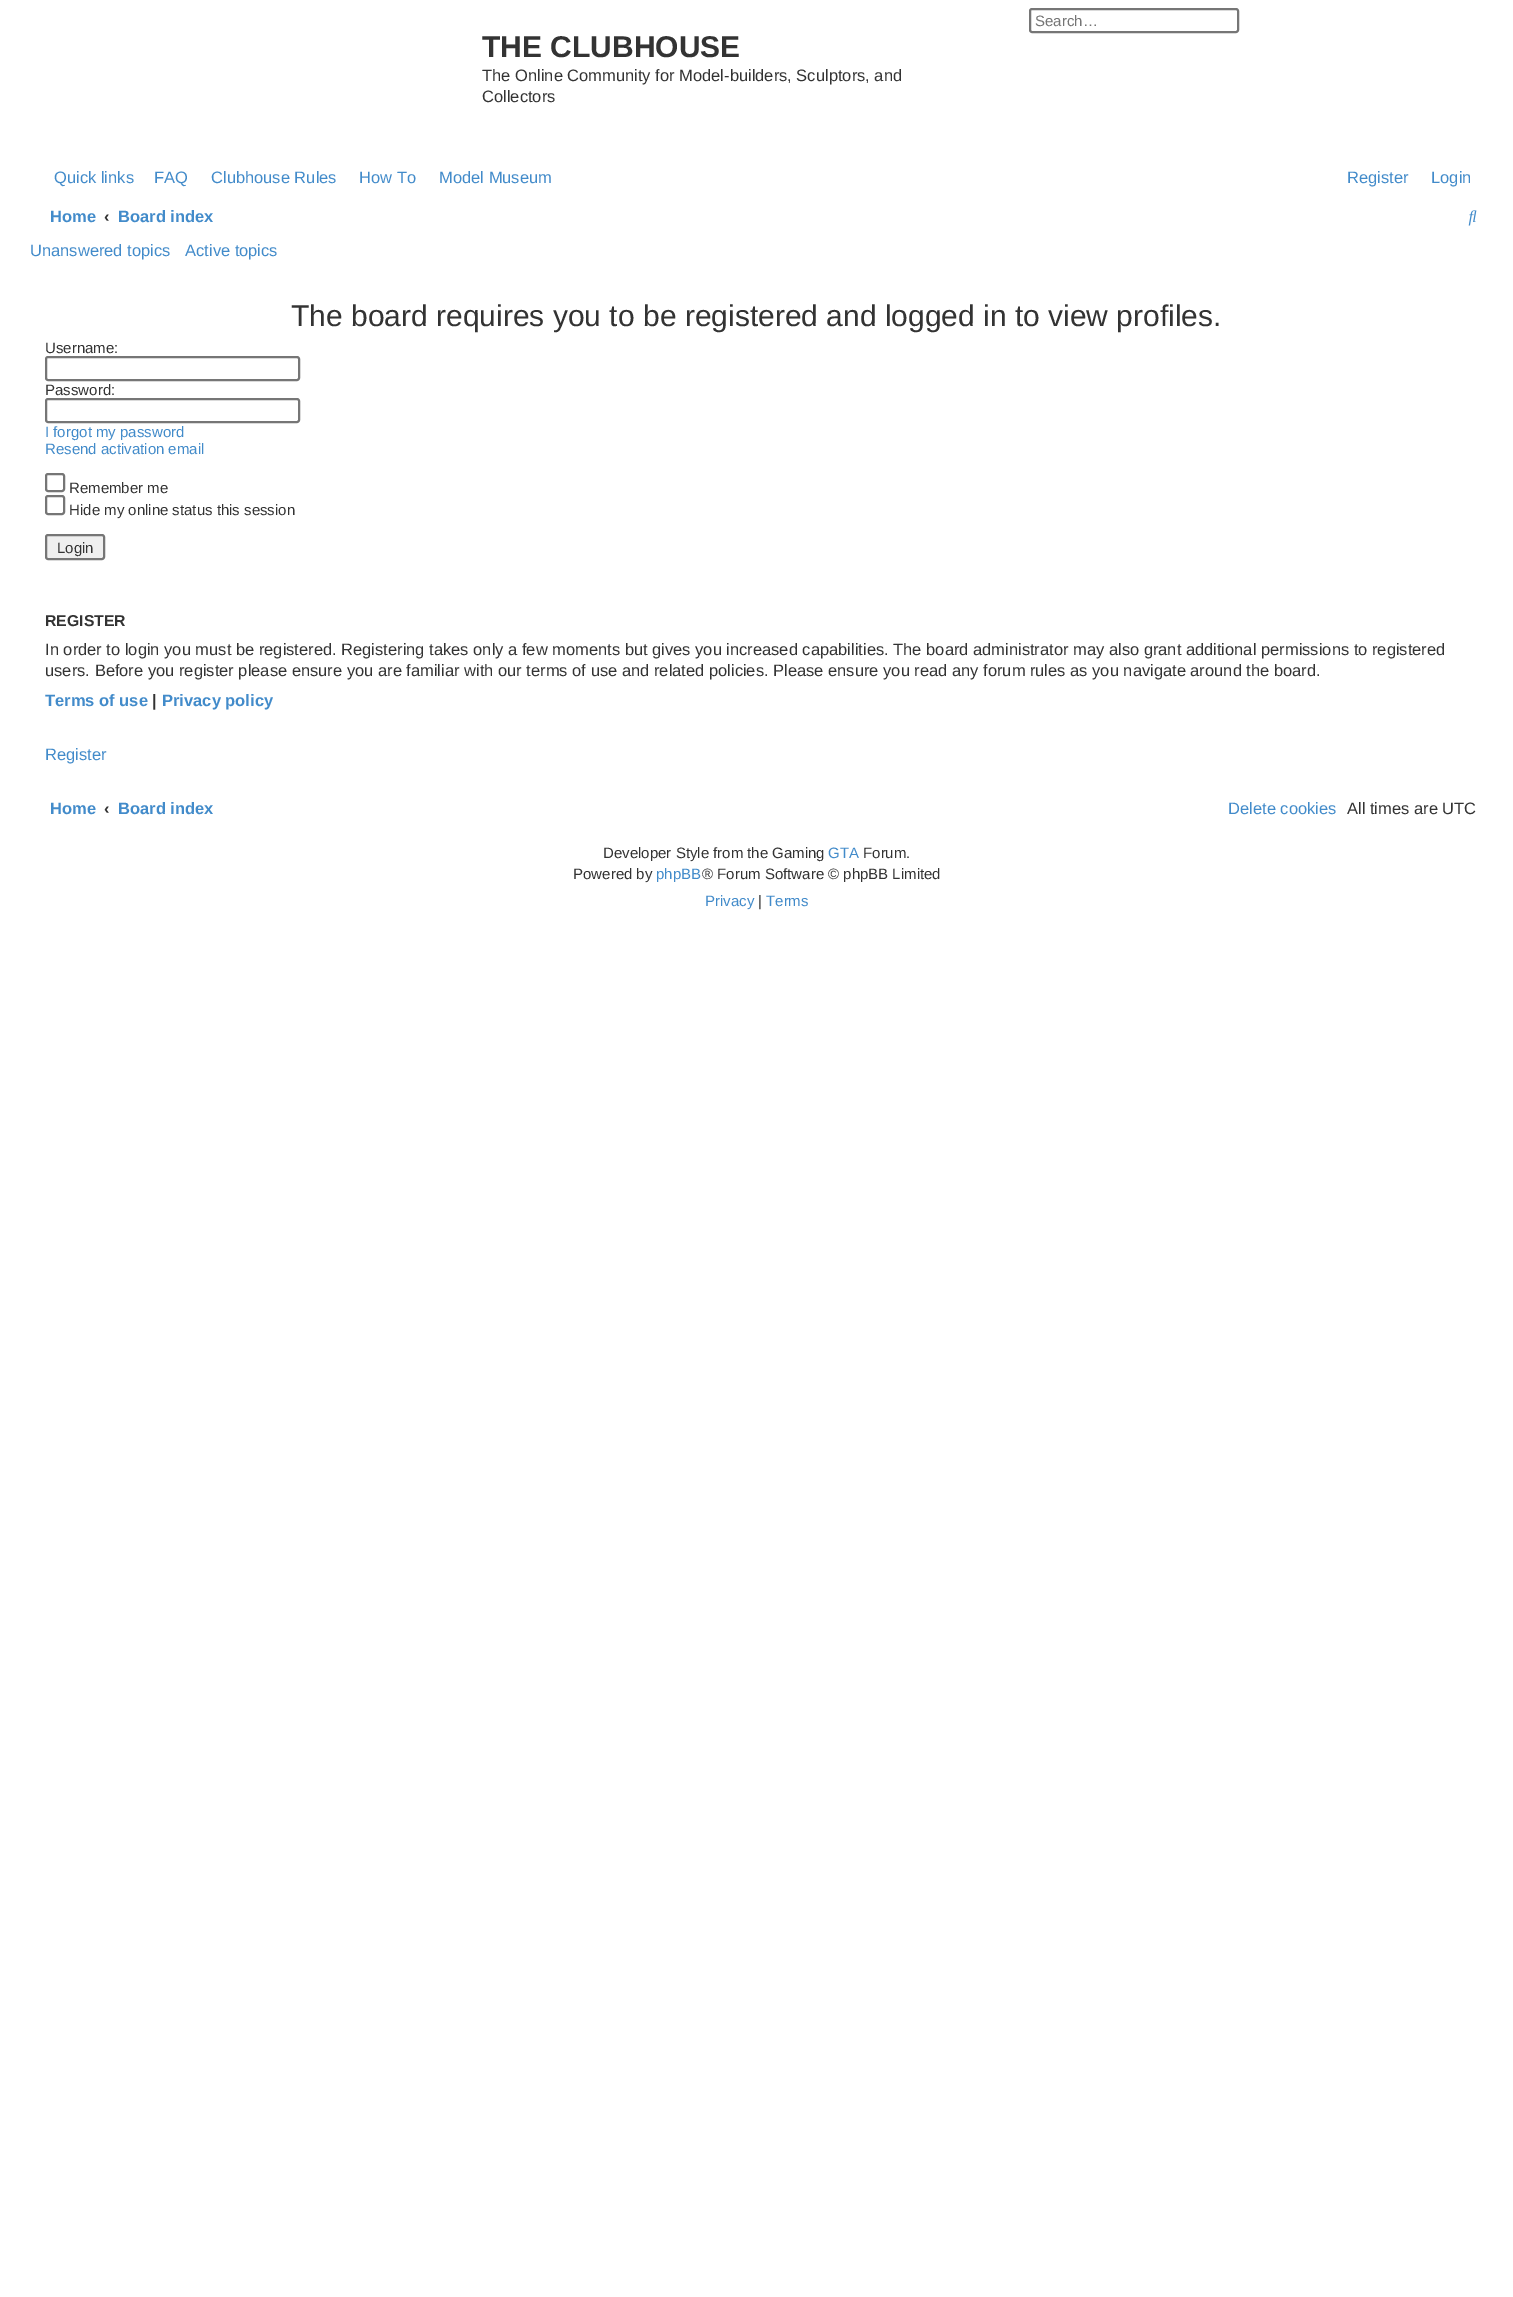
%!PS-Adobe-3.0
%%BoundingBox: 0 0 1513 2297
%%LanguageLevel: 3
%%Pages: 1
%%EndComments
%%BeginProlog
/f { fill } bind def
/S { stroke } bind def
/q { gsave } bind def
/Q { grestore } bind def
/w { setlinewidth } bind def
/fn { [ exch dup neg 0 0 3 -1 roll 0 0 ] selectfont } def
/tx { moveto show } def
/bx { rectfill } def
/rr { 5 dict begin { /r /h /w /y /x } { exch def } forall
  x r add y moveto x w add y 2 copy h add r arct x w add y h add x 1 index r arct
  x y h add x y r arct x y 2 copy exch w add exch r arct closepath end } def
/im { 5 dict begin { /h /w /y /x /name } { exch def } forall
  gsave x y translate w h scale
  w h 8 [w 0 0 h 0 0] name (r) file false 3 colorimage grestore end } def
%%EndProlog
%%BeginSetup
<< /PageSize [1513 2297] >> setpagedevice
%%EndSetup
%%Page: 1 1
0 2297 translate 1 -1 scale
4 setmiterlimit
1 setgray
0 0 1513 2297 bx
0.463 setgray
2 w
1030 9 208 23 2 rr S
/LiberationSans-Regular 15 fn
0.459 setgray
(Search…) 1035 26 tx
/LiberationSans-Bold 30 fn
0.2 setgray
(THE CLUBHOUSE) 482 57 tx
/LiberationSans-Regular 16.5 fn
(The Online Community for Model-builders, Sculptors, and) 482 81 tx
(Collectors) 482 102 tx
0.259 0.545 0.792 setrgbcolor
(Quick links) 54 183 tx
(FAQ) 154 183 tx
(Clubhouse Rules) 211 183 tx
(How To) 359 183 tx
(Model Museum) 439 183 tx
(Register) 1347 183 tx
(Login) 1431 183 tx
/LiberationSans-Bold 16.5 fn
(Home) 50 222 tx
0.2 setgray
(‹) 104 222 tx
0.259 0.545 0.792 setrgbcolor
(Board index) 118 222 tx
(image0.raw) 1468 210 9 16 im
/LiberationSans-Regular 16.5 fn
(Unanswered topics) 30 256 tx
(Active topics) 185 256 tx
/LiberationSans-Regular 30 fn
0.2 setgray
(The board requires you to be registered and logged in to view profiles.) 291 326 tx
/LiberationSans-Regular 15 fn
(Username:) 45 353 tx
0.463 setgray
46 357 253 23 2 rr S
0.2 setgray
(Password:) 45 395 tx
0.463 setgray
46 399 253 23 2 rr S
0.259 0.545 0.792 setrgbcolor
(I forgot my password) 45 437 tx
(Resend activation email) 45 454 tx
0.463 setgray
46 474 18 17 2 rr S
0.2 setgray
(Remember me) 69 493 tx
0.463 setgray
46 496 18 18 2 rr S
0.2 setgray
(Hide my online status this session) 69 515 tx
0.937 setgray
46 535 58 24 2 rr q f Q
0.463 setgray
S
0.2 setgray
(Login) 57 553 tx
/LiberationSans-Bold 15.75 fn
(REGISTER) 45 626 tx
/LiberationSans-Regular 16.5 fn
(In order to login you must be registered. Registering takes only a few moments but gives you increased capabilities. The board administrator may also grant additional permissions to registered) 45 655 tx
(users. Before you register please ensure you are familiar with our terms of use and related policies. Please ensure you read any forum rules as you navigate around the board.) 45 676 tx
/LiberationSans-Bold 16.5 fn
0.259 0.545 0.792 setrgbcolor
(Terms of use) 45 706 tx
0.2 setgray
(|) 152 706 tx
0.259 0.545 0.792 setrgbcolor
(Privacy policy) 162 706 tx
/LiberationSans-Regular 16.5 fn
(Register) 45 760 tx
/LiberationSans-Bold 16.5 fn
(Home) 50 814 tx
0.2 setgray
(‹) 104 814 tx
0.259 0.545 0.792 setrgbcolor
(Board index) 118 814 tx
/LiberationSans-Regular 16.5 fn
(Delete cookies) 1228 814 tx
0.2 setgray
(All times are UTC) 1347 814 tx
/LiberationSans-Regular 15 fn
(Developer Style from the Gaming) 603 858 tx
0.259 0.545 0.792 setrgbcolor
(GTA) 828 858 tx
0.2 setgray
(Forum.) 863 858 tx
(Powered by) 573 879 tx
0.259 0.545 0.792 setrgbcolor
(phpBB) 656 879 tx
0.2 setgray
(® Forum Software © phpBB Limited) 702 879 tx
0.259 0.545 0.792 setrgbcolor
(Privacy) 705 906 tx
0.2 setgray
(|) 758 906 tx
0.259 0.545 0.792 setrgbcolor
(Terms) 766 906 tx
showpage
%%EOF
